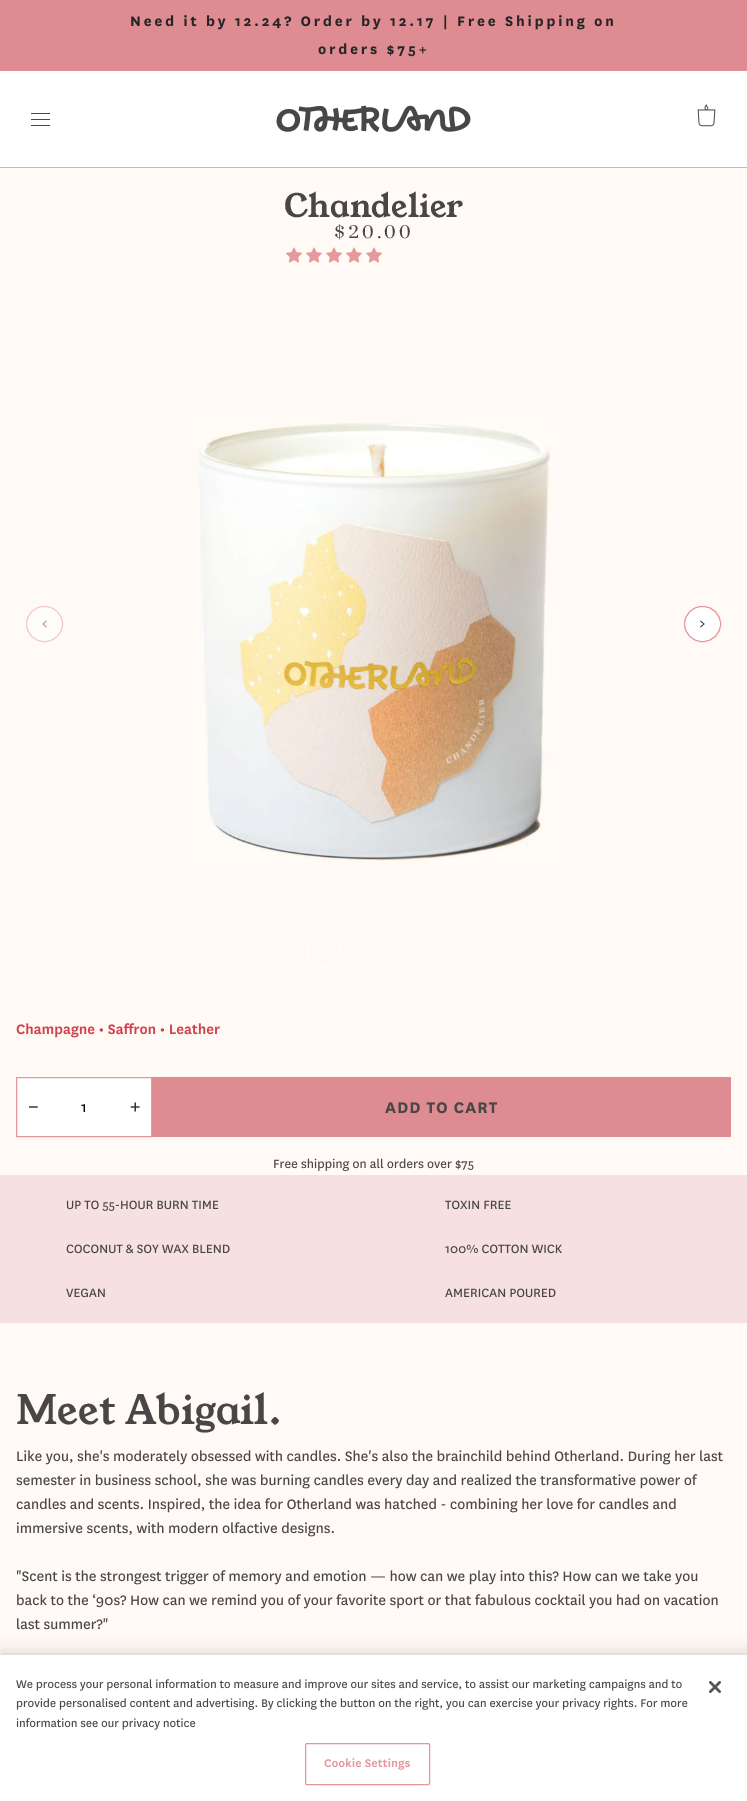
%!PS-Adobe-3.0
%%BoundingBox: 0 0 747 1801
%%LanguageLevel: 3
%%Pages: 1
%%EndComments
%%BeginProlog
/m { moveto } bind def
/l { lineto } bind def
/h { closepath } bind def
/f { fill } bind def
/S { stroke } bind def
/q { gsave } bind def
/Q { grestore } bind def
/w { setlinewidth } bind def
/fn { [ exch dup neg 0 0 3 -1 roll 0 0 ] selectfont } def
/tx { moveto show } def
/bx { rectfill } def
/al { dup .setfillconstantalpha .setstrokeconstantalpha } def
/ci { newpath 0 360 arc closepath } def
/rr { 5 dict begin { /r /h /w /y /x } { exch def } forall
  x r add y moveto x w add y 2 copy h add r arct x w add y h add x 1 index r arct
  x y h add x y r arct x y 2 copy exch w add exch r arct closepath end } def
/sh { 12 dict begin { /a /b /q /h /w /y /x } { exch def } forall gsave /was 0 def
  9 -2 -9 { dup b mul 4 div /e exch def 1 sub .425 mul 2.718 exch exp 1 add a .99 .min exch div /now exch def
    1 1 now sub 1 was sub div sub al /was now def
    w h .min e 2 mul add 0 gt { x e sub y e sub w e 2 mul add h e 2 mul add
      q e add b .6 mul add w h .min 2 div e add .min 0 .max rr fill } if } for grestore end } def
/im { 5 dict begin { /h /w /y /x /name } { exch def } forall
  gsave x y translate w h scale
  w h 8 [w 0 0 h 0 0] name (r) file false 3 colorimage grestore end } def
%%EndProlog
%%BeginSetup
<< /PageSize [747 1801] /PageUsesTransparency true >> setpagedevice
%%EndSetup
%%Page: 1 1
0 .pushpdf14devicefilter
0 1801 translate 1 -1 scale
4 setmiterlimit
1 setgray
0 0 747 1801 bx
0.875 0.545 0.573 setrgbcolor
0 0 747 71 bx
(image0.raw) 131 15 482 15 im
(image1.raw) 318 43 109 14 im
0.741 setgray
0 167 747 1 bx
0.282 0.275 0.275 setrgbcolor
31 113 19 1 bx
31 119 19 1 bx
31 125 19 1 bx
(image2.raw) 276 105 195 28 im
(image3.raw) 697 104 19 23 im
1 0.98 0.961 setrgbcolor
0 168 747 1487 bx
/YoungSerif-Regular 32 fn
0.282 0.275 0.275 setrgbcolor
(Chandelier) 284 217 tx
/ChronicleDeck-Regular 20 fn
334 238 m 3 0 ($20.00) ashow
(image4.raw) 286 247 16 16 im
(image4.raw) 306 247 16 16 im
(image4.raw) 326 247 16 16 im
(image4.raw) 346 247 16 16 im
(image4.raw) 366 247 16 16 im
1 0.992 0.98 setrgbcolor
26.5 606.5 36 35 17.5 rr q f Q
0.953 0.788 0.788 setrgbcolor
S
0.643 0.627 0.62 setrgbcolor
0.8 w
1 setlinejoin
46.5 621 m 43 624 l 46.5 627 l S
(image5.raw) 198 422 353 440 im
1 setgray
684.5 606.5 36 35 17.5 rr q f Q
0.902 0.592 0.612 setrgbcolor
1 w
0 setlinejoin
S
0.282 0.275 0.275 setrgbcolor
0.8 w
1 setlinejoin
700.5 621 m 704 624 l 700.5 627 l S
1 setgray
1 w
0 setlinejoin
323.5 949.5 17 ci S
(image6.raw) 16 1023 204 15 im
16.5 1077.5 m 151.5 1077.5 l 151.5 1136.5 l 16.5 1136.5 l h q f Q
0.902 0.592 0.612 setrgbcolor
S
/LiberationSans-Regular 18 fn
0.2 setgray
(−) 28 1113 tx
(image7.raw) 81 1104 4 8 im
(+) 130 1113 tx
0.875 0.545 0.573 setrgbcolor
152 1077 579 60 bx
(image8.raw) 385 1102 113 12 im
(image9.raw) 274 1158 200 13 im
0.969 0.878 0.882 setrgbcolor
0 1175 747 148 bx
(image10.raw) 66 1200 153 11 im
(image11.raw) 445 1200 66 10 im
(image12.raw) 66 1244 164 10 im
(image13.raw) 445 1244 117 10 im
(image14.raw) 66 1288 39 10 im
(image15.raw) 445 1288 111 10 im
/YoungSerif-Regular 40 fn
0.282 0.275 0.275 setrgbcolor
(Meet Abigail.) 16 1424 tx
(image16.raw) 17 1450 706 15 im
(image17.raw) 16 1474 682 15 im
(image18.raw) 16 1498 660 15 im
(image19.raw) 16 1522 318 15 im
(image20.raw) 16 1570 682 15 im
(image21.raw) 17 1594 701 15 im
(image22.raw) 17 1618 91 12 im
0 setgray
0 1655 747 146 0 9 0.2 sh
1 setgray
0 1655 747 146 bx
(image23.raw) 16 1679 666 12 im
(image24.raw) 16 1698 672 12 im
(image25.raw) 16 1718 180 12 im
0.898 0.588 0.608 setrgbcolor
305.5 1743.5 124 41 1.5 rr S
(image26.raw) 324 1758 86 12 im
(image27.raw) 709 1681 12 12 im
.poppdf14devicefilter showpage
%%EOF
